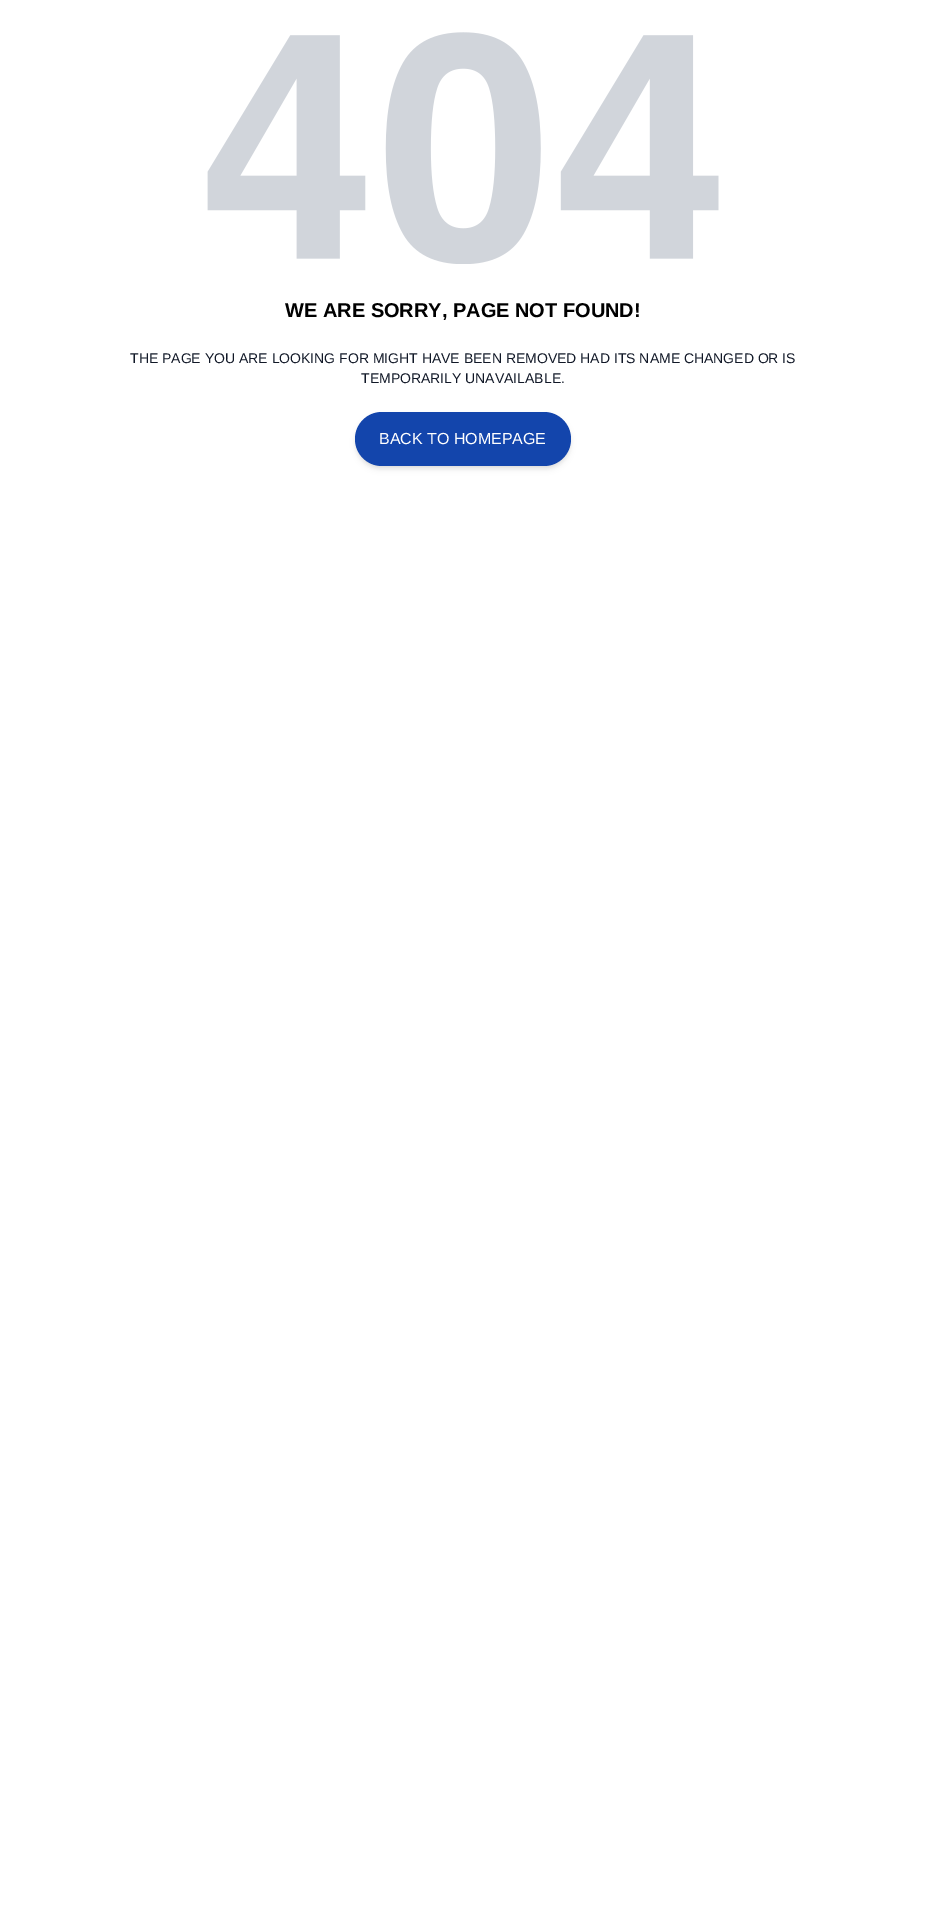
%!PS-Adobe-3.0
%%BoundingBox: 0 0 926 1915
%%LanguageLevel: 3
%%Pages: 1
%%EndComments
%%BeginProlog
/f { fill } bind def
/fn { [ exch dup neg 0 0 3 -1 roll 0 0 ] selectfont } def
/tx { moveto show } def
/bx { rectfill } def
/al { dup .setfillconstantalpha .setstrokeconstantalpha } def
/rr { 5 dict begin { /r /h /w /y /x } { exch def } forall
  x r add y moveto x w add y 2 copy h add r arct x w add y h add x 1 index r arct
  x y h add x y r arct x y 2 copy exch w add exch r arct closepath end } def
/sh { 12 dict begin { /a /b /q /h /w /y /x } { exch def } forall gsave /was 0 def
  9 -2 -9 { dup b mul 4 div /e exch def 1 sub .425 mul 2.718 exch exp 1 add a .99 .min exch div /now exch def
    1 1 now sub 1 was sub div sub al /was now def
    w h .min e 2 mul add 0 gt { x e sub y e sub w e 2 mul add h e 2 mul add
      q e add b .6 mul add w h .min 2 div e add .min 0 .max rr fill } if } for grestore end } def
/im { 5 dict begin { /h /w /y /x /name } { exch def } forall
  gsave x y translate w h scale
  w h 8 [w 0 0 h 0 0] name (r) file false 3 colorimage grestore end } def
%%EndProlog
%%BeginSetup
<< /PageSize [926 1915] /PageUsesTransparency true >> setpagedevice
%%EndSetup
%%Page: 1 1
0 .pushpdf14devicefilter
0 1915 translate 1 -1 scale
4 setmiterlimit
1 setgray
0 0 926 1915 bx
(image0.raw) 207 32 512 232 im
/LiberationSans-Bold 20 fn
0 setgray
(WE ARE SORRY, PAGE NOT FOUND!) 285 317 tx
/LiberationSans-Regular 14 fn
0.067 0.094 0.153 setrgbcolor
(THE PAGE YOU ARE LOOKING FOR MIGHT HAVE BEEN REMOVED HAD ITS NAME CHANGED OR IS) 130 363 tx
(TEMPORARILY UNAVAILABLE.) 361 383 tx
0 setgray
356 415 214 52 26 2 0.06 sh
356 417 214 52 26 3 0.1 sh
0.075 0.271 0.675 setrgbcolor
355 412 216 54 27 rr f
/LiberationSans-Regular 16 fn
1 setgray
(BACK TO HOMEPAGE) 379 444 tx
.poppdf14devicefilter showpage
%%EOF
